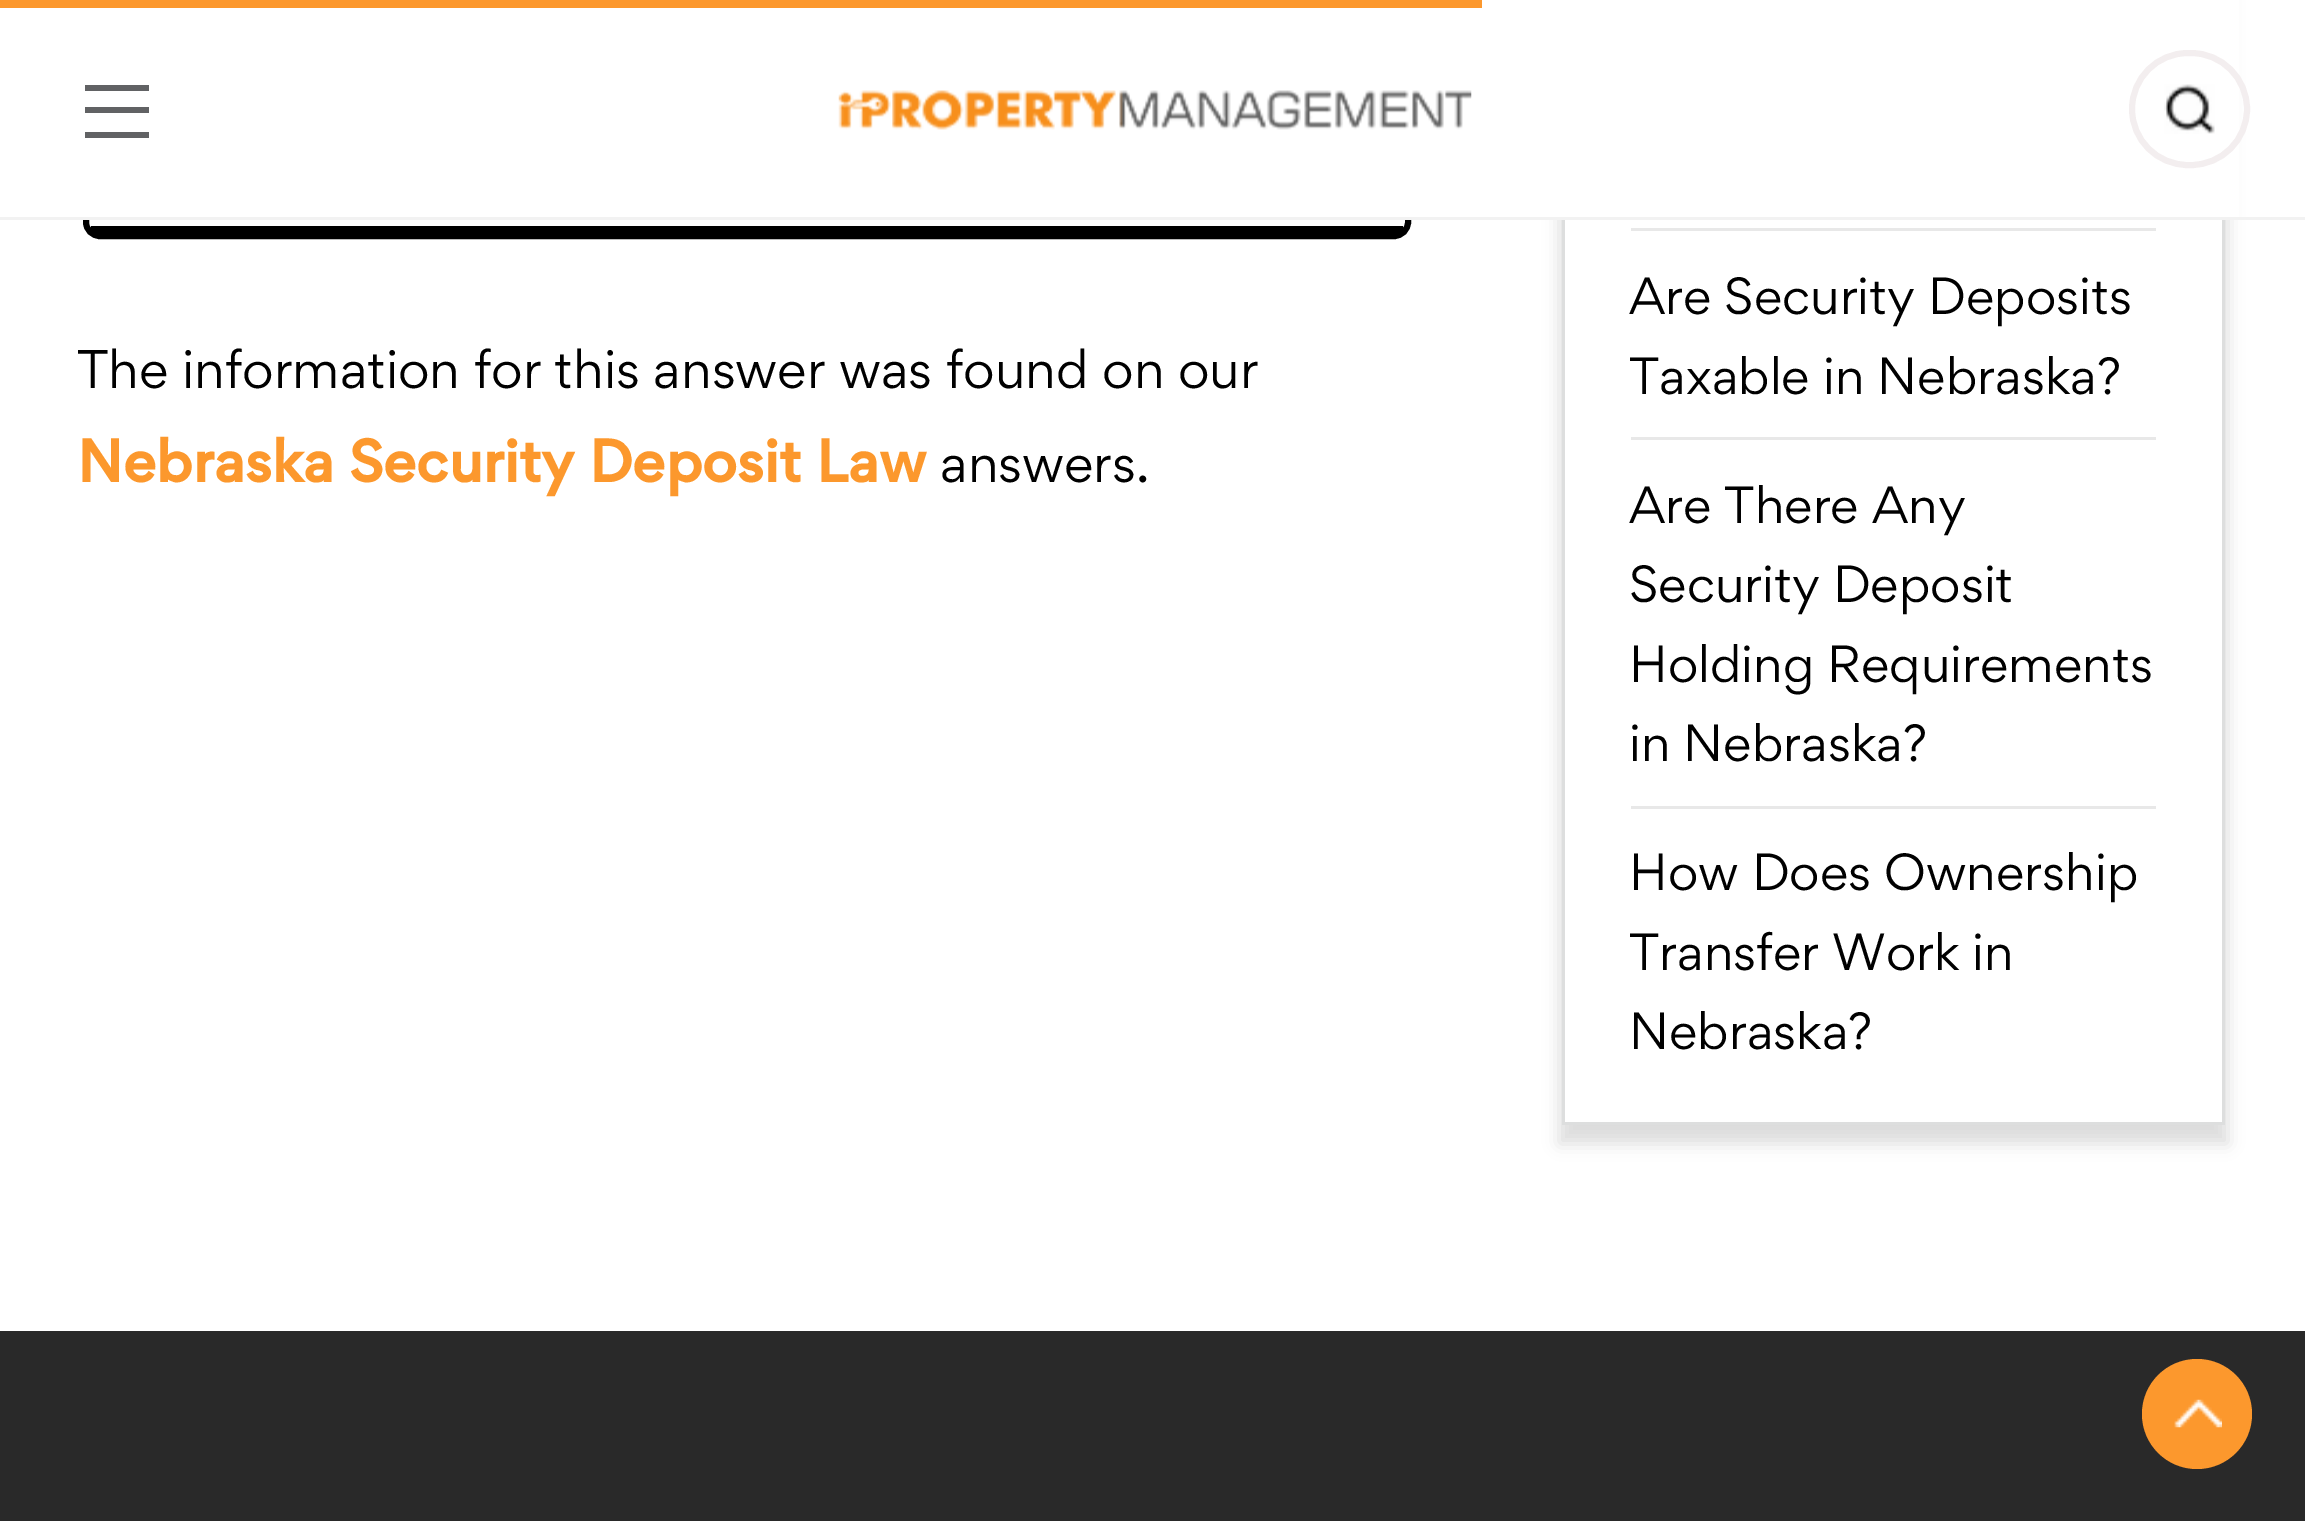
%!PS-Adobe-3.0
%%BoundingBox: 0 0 2305 1521
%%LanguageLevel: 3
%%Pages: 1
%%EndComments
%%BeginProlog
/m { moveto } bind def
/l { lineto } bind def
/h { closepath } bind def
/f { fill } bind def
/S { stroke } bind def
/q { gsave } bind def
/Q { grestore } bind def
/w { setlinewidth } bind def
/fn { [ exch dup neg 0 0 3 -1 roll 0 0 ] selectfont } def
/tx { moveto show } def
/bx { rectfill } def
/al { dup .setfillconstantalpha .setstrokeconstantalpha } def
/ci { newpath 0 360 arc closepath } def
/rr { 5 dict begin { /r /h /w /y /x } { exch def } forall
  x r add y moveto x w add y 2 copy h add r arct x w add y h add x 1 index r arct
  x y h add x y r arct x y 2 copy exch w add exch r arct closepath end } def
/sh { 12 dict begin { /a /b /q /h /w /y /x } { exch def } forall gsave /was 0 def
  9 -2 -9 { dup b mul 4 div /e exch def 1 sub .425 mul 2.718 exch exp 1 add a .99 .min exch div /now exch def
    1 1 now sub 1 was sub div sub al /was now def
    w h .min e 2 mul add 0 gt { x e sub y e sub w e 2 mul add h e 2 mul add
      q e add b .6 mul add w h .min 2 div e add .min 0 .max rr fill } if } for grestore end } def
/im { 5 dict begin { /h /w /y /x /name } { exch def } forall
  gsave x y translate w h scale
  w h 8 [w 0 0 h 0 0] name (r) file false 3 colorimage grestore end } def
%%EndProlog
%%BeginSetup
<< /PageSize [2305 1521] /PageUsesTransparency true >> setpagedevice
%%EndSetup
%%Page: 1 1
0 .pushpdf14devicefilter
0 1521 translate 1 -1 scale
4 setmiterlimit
1 setgray
0 0 2305 1521 bx
0 setgray
6 w
86 -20 1322 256 14 rr S
q
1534 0 m 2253 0 l 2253 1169 l 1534 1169 l h 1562 -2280 m 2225 -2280 l 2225 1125 l 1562 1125 l h eoclip newpath
1559 -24 669 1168 0 8 0.13 sh
Q
0.867 0.871 0.871 setrgbcolor
2225 -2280 m 2225 1125 l 2222 1122 l 2222 -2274 l h f
1562 1122 663 3 bx
1562 1125 m 1562 -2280 l 1565 -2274 l 1565 1122 l h f
1 setgray
83 0 2156 217 bx
0.949 setgray
0 217 2305 3 bx
0.38 0.384 0.392 setrgbcolor
85 85 64 6 bx
85 107 64 6 bx
85 132 64 6 bx
(image0.raw) 838 90 634 40 im
0.953 0.933 0.937 setrgbcolor
2132 53 115 112 56 rr S
(image1.raw) 2164 84 51 50 im
0.988 0.596 0.176 setrgbcolor
0 0 1482 8 bx
0 setgray
91 226 1312 7 bx
/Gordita-Regular 48.5 fn
(The information for this answer was found on our) 77 388 tx
/Gordita-Bold 53.9 fn
0.988 0.596 0.176 setrgbcolor
(Nebraska Security Deposit Law) 77 482 tx
/Gordita-Regular 48.5 fn
0 setgray
(answers.) 940 482 tx
0.91 setgray
1631 228 525 3 bx
1631 437 525 3 bx
/Gordita-Regular 46.75 fn
0 setgray
(Are Security Deposits) 1629 314 tx
(Taxable in Nebraska?) 1629 394 tx
0.91 setgray
1631 806 525 3 bx
0 setgray
(Are There Any) 1629 523 tx
(Security Deposit) 1629 602 tx
(Holding Requirements) 1629 682 tx
(in Nebraska?) 1629 761 tx
(How Does Ownership) 1629 890 tx
(Transfer Work in) 1629 970 tx
(Nebraska?) 1629 1049 tx
0.161 setgray
0 1331 2305 190 bx
0.988 0.596 0.176 setrgbcolor
2197 1414 55 ci f
(image2.raw) 2174 1399 48 29 im
.poppdf14devicefilter showpage
%%EOF
